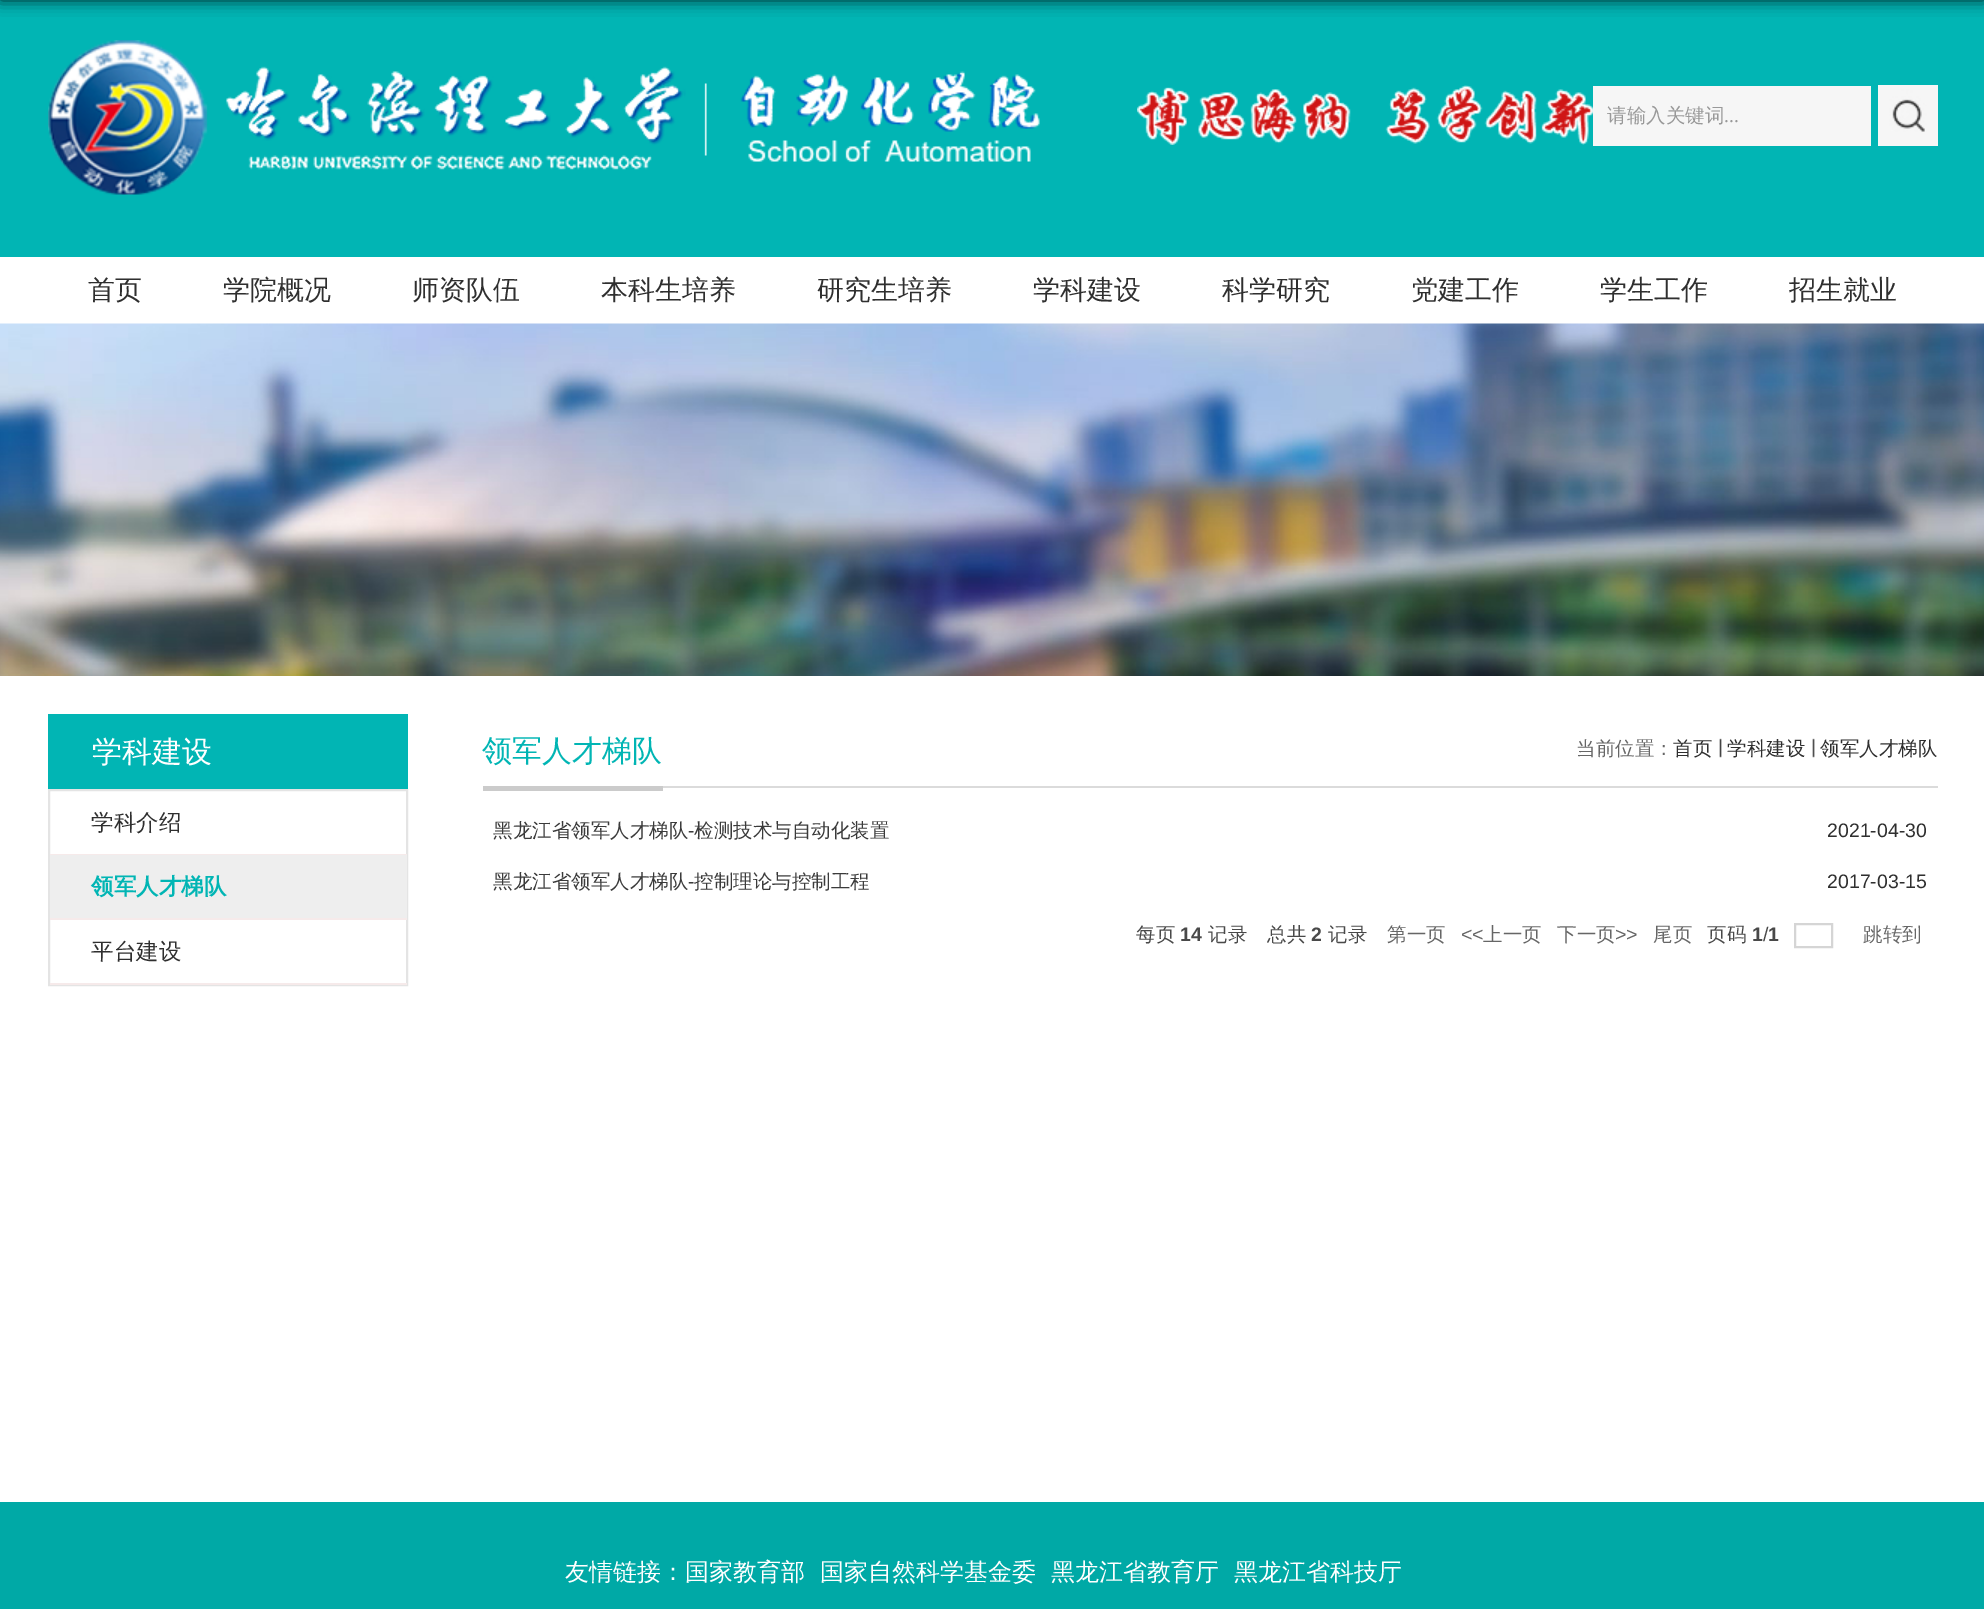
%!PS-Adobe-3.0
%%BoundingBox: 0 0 1984 1609
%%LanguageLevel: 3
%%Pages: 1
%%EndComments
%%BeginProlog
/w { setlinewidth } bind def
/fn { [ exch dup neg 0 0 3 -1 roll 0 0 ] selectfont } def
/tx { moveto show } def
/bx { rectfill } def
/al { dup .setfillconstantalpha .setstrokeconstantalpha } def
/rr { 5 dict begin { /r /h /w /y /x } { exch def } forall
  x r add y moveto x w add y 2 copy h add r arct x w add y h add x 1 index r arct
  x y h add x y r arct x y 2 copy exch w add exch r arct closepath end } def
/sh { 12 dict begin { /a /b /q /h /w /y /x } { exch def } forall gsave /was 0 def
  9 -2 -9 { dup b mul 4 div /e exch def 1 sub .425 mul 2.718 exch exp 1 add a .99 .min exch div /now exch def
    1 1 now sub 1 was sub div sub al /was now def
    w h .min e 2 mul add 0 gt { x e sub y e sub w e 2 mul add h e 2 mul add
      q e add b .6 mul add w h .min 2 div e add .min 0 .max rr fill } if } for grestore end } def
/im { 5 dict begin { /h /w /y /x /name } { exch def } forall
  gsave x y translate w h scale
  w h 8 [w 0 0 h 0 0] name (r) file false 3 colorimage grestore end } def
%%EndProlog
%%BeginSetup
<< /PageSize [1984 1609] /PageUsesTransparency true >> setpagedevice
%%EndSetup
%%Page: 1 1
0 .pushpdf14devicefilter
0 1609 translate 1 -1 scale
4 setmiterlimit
1 setgray
0 0 1984 1609 bx
0.004 0.71 0.706 setrgbcolor
0 0 1984 257 bx
0 setgray
0 -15 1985 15 0 7.5 0.8 sh
(image0.raw) 1137 85 456 60 im
(image1.raw) 48 40 992 155 im
0.965 setgray
1593 86 278 60 bx
/WenQuanYiZenHei-Medium 19.5 fn
0.6 setgray
(请输入关键词) 1607 122 tx
/LiberationSerif-Regular 19.5 fn
(...) 1724 122 tx
0.965 setgray
1878 132 60 14 bx
(image2.raw) 1878 85 60 47 im
/WenQuanYiZenHei-Medium 27 fn
0.184 setgray
(首页) 88 299 tx
(学院概况) 223 299 tx
(师资队伍) 412 299 tx
(本科生培养) 601 299 tx
(研究生培养) 817 299 tx
(学科建设) 1033 299 tx
(科学研究) 1222 299 tx
(党建工作) 1411 299 tx
(学生工作) 1600 299 tx
(招生就业) 1789 299 tx
(image3.raw) 0 323 1984 353 im
0.004 0.71 0.706 setrgbcolor
48 714 360 75 bx
/WenQuanYiZenHei-Medium 30 fn
1 setgray
(学科建设) 92 762 tx
0.894 setgray
2 w
49 790 358 195 rectstroke
0.965 0.918 0.918 setrgbcolor
50 854 357 1 bx
/WenQuanYiZenHei-Medium 22.5 fn
0.184 setgray
(学科介绍) 91 830 tx
0.933 setgray
50 855 357 63 bx
0.965 0.918 0.918 setrgbcolor
50 918 357 2 bx
/WenQuanYiZenHei-Bold 22.5 fn
0.004 0.71 0.706 setrgbcolor
(领军人才梯队) 91 894 tx
0.965 0.918 0.918 setrgbcolor
50 983 357 2 bx
/WenQuanYiZenHei-Medium 22.5 fn
0.184 setgray
(平台建设) 91 959 tx
0.859 setgray
663 786 1275 2 bx
0.796 setgray
483 786 180 5 bx
/WenQuanYiZenHei-Medium 30 fn
0.004 0.71 0.706 setrgbcolor
(领军人才梯队) 482 761 tx
/WenQuanYiZenHei-Medium 19.5 fn
0.4 setgray
(当前位置：) 1576 755 tx
0.184 setgray
(首页) 1673 755 tx
(image4.raw) 1719 738 3 20 im
(学科建设) 1727 755 tx
(image5.raw) 1812 738 3 20 im
(领军人才梯队) 1820 755 tx
0.231 setgray
(黑龙江省领军人才梯队) 493 837 tx
/LiberationSans-Regular 19.5 fn
(-) 688 837 tx
/WenQuanYiZenHei-Medium 19.5 fn
(检测技术与自动化装置) 694 837 tx
/LiberationSans-Regular 19.5 fn
0.184 setgray
(2021-04-30) 1827 837 tx
/WenQuanYiZenHei-Medium 19.5 fn
0.231 setgray
(黑龙江省领军人才梯队) 493 888 tx
/LiberationSans-Regular 19.5 fn
(-) 688 888 tx
/WenQuanYiZenHei-Medium 19.5 fn
(控制理论与控制工程) 694 888 tx
/LiberationSans-Regular 19.5 fn
0.184 setgray
(2017-03-15) 1827 888 tx
/WenQuanYiZenHei-Medium 19.5 fn
0.286 setgray
(每页) 1136 941 tx
/LiberationSans-Bold 19.5 fn
(14) 1180 941 tx
/WenQuanYiZenHei-Medium 19.5 fn
(记录) 1208 941 tx
(总共) 1267 941 tx
/LiberationSans-Bold 19.5 fn
(2) 1311 941 tx
/WenQuanYiZenHei-Medium 19.5 fn
(记录) 1328 941 tx
0.4 setgray
(第一页) 1387 941 tx
/LiberationSans-Regular 19.5 fn
(<<) 1461 941 tx
/WenQuanYiZenHei-Medium 19.5 fn
(上一页) 1483 941 tx
(下一页) 1557 941 tx
/LiberationSans-Regular 19.5 fn
(>>) 1615 941 tx
/WenQuanYiZenHei-Medium 19.5 fn
(尾页) 1653 941 tx
0.286 setgray
(页码) 1707 941 tx
/LiberationSans-Bold 19.5 fn
(1 1) 1752 941 tx
/LiberationSans-Regular 19.5 fn
(/) 1763 941 tx
0.835 setgray
1795 924 37 23 rectstroke
/WenQuanYiZenHei-Medium 19.5 fn
0.4 setgray
(跳转到) 1863 941 tx
0 0.663 0.651 setrgbcolor
0 1502 1984 107 bx
/WenQuanYiZenHei-Medium 24 fn
1 setgray
(友情链接：国家教育部) 565 1580 tx
(国家自然科学基金委) 820 1580 tx
(黑龙江省教育厅) 1051 1580 tx
(黑龙江省科技厅) 1234 1580 tx
.poppdf14devicefilter showpage
%%EOF
